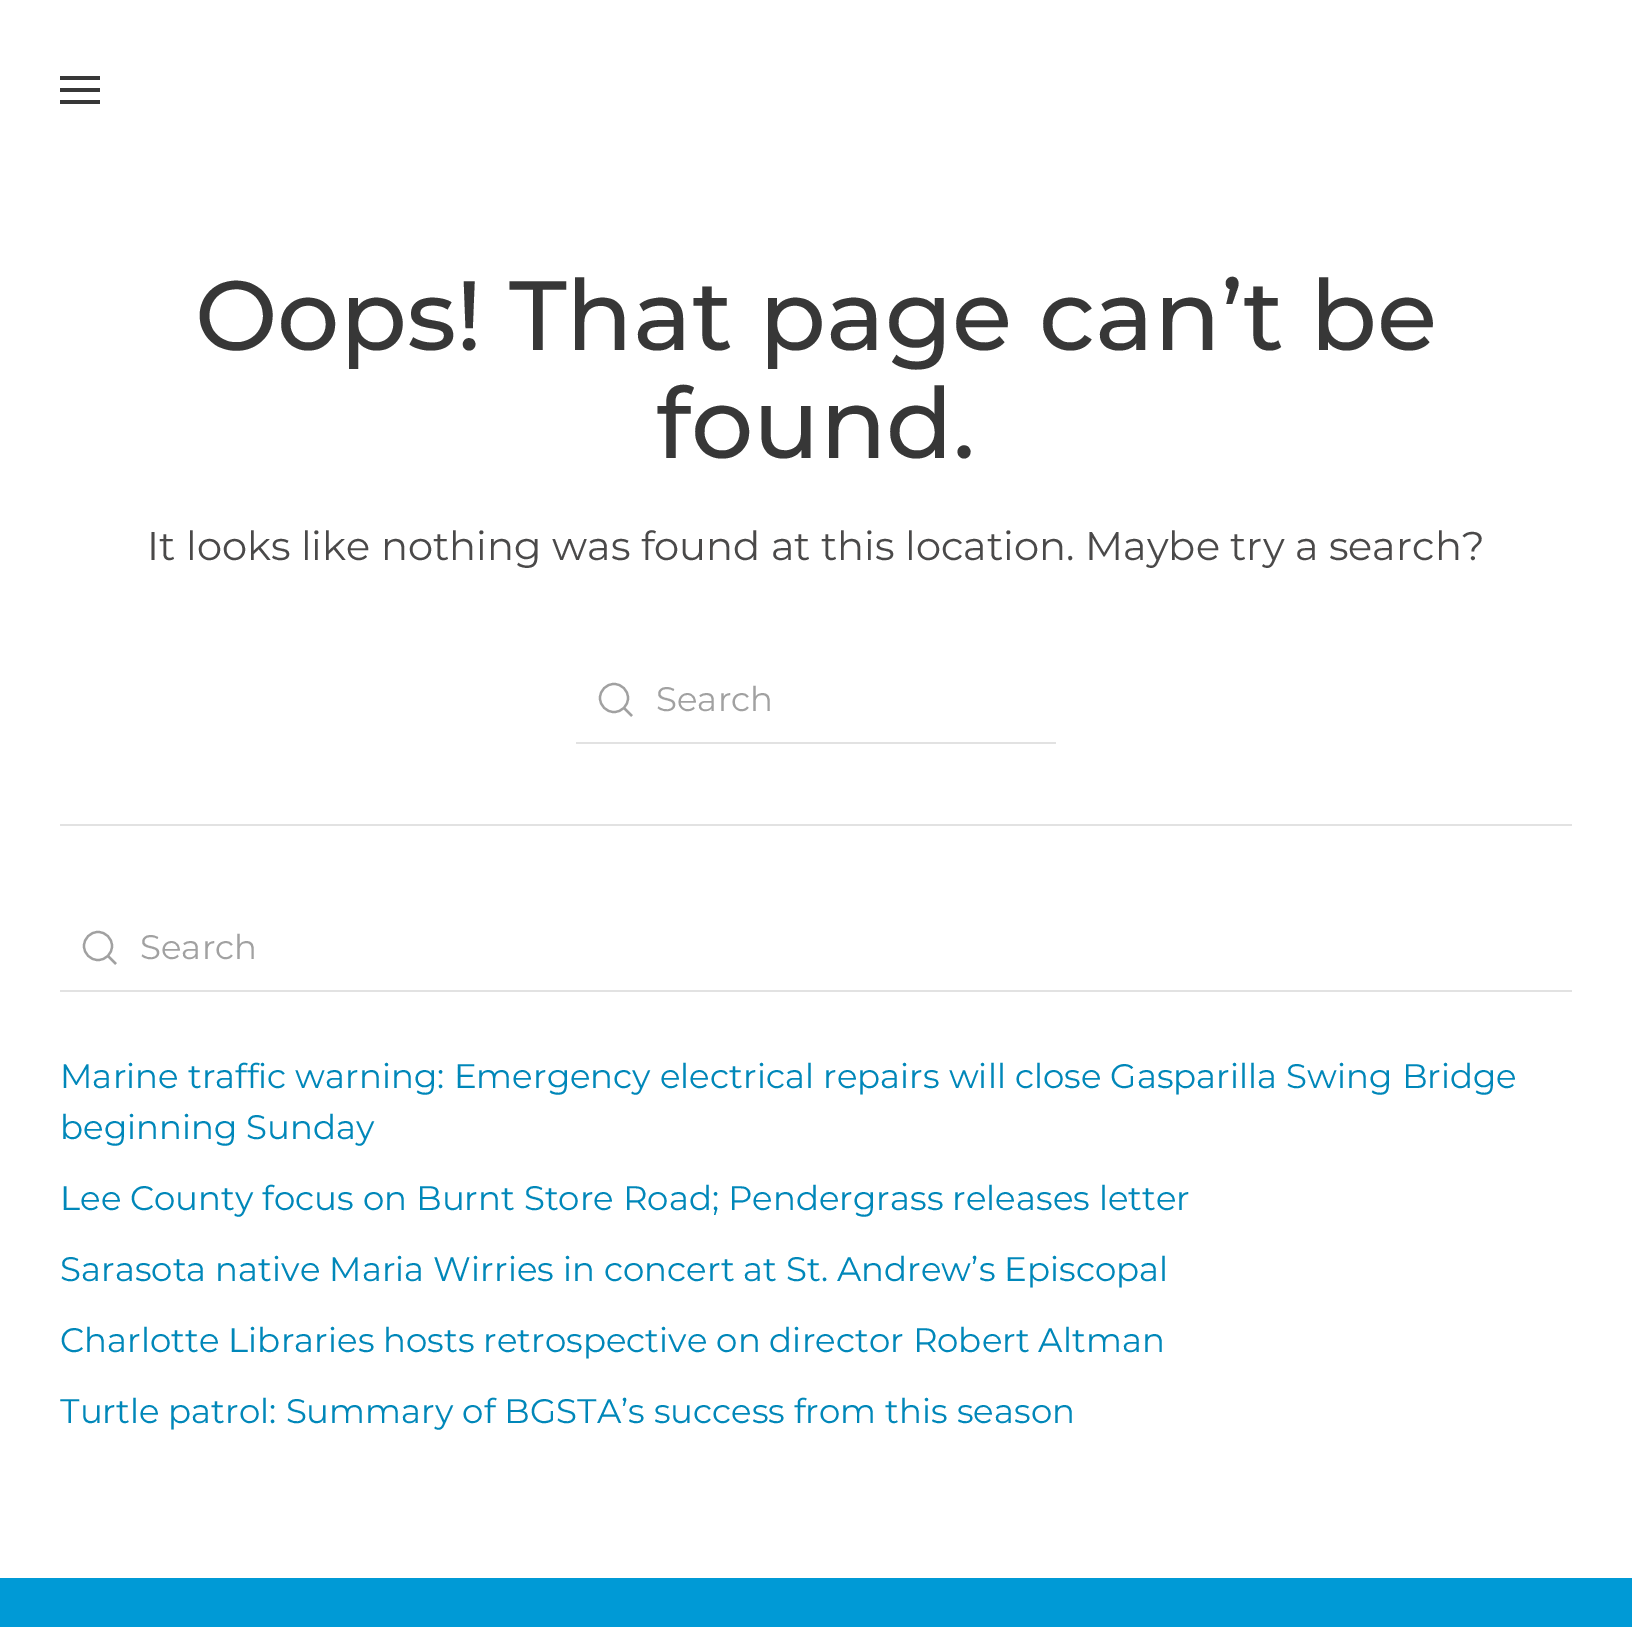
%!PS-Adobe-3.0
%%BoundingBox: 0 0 1632 1627
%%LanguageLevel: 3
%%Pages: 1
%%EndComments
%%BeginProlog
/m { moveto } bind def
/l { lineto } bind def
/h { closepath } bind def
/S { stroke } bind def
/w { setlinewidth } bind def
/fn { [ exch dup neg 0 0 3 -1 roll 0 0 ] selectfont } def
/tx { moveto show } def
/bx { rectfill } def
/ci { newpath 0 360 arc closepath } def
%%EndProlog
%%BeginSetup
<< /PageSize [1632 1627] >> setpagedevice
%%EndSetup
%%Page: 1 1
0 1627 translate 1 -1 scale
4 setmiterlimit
1 setgray
0 0 1632 1627 bx
0.216 setgray
60 76 40 4 bx
60 88 40 4 bx
60 100 40 4 bx
/Montserrat-Thin 98.2 fn
(Oops! That page can’t be) 195 350 tx
(found.) 656 458 tx
/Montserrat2-Thin 40 fn
0.29 0.286 0.286 setrgbcolor
(It looks like nothing was found at this location. Maybe try a search?) 147 560 tx
0.631 setgray
2.2 w
614 698 14 ci S
624 708 m 632 716 l h S
0.886 setgray
576 742 480 2 bx
/Montserrat2-Thin 34 fn
0.631 setgray
(Search) 656 711 tx
0.886 setgray
60 824 1512 2 bx
0.631 setgray
98 946 14 ci S
108 956 m 116 964 l h S
0.886 setgray
60 990 1512 2 bx
0.631 setgray
(Search) 140 959 tx
0 0.529 0.725 setrgbcolor
(Marine traffic warning: Emergency electrical repairs will close Gasparilla Swing Bridge) 60 1088 tx
(beginning Sunday) 60 1139 tx
(Lee County focus on Burnt Store Road; Pendergrass releases letter) 60 1210 tx
(Sarasota native Maria Wirries in concert at St. Andrew’s Episcopal) 60 1281 tx
(Charlotte Libraries hosts retrospective on director Robert Altman) 60 1352 tx
(Turtle patrol: Summary of BGSTA’s success from this season) 60 1423 tx
0 0.604 0.839 setrgbcolor
0 1578 1632 49 bx
showpage
%%EOF
